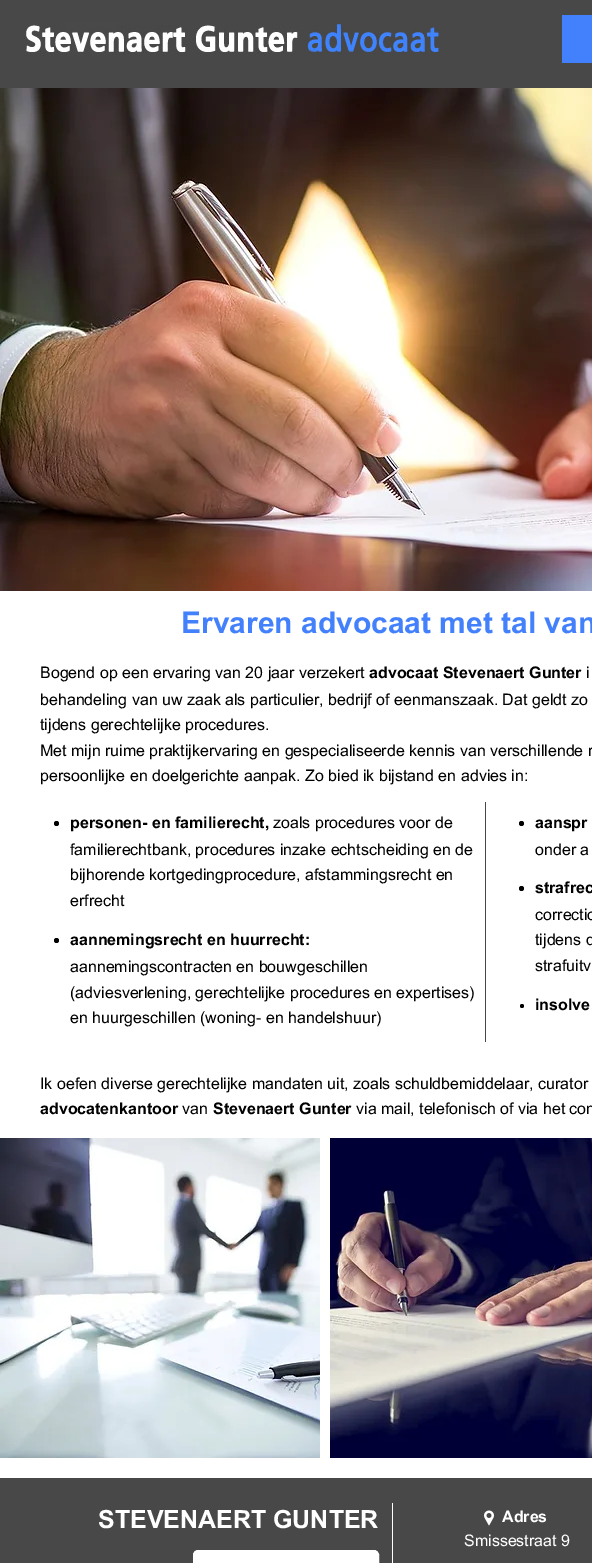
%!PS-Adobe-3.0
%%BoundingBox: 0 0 592 1563
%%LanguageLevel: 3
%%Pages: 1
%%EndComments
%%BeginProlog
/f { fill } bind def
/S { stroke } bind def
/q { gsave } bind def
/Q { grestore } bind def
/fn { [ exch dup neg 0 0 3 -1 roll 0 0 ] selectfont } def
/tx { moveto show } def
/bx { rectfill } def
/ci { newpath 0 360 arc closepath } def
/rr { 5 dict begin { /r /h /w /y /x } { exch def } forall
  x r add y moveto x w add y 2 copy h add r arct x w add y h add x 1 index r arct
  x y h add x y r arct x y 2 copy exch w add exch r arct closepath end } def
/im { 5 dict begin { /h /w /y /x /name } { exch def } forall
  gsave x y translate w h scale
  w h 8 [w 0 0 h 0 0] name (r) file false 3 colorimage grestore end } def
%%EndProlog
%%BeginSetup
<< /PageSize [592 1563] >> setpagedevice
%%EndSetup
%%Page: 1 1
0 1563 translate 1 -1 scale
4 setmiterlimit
1 setgray
0 0 592 1563 bx
0.282 setgray
0 0 592 88 bx
(image0.raw) 21 22 420 34 im
0.263 0.506 0.988 setrgbcolor
562 15 30 48 bx
(image1.raw) 0 88 592 503 im
/Arial-Bold 30 fn
(Ervaren advocaat met tal van) 181 633 tx
/Arial-Regular 16 fn
0 setgray
(Bogend op een ervaring van 20 jaar verzekert) 40 678 tx
/Arial-Bold 16 fn
(advocaat Stevenaert Gunter) 369 678 tx
/Arial-Regular 16 fn
(i) 586 678 tx
(behandeling van uw zaak als particulier, bedrijf of eenmanszaak. Dat geldt zo) 40 705 tx
(tijdens gerechtelijke procedures.) 40 730 tx
(Met mijn ruime praktijkervaring en gespecialiseerde kennis van verschillende r) 40 756 tx
(persoonlijke en doelgerichte aanpak. Zo bied ik bijstand en advies in:) 40 781 tx
56.5 823.5 2.5 ci f
/Arial-Bold 16 fn
(personen- en familierecht,) 70 828 tx
/Arial-Regular 16 fn
(zoals procedures voor de) 273 828 tx
(familierechtbank, procedures inzake echtscheiding en de) 70 855 tx
(bijhorende kortgedingprocedure, afstammingsrecht en) 70 880 tx
(erfrecht) 70 906 tx
56.5 940.5 2.5 ci f
/Arial-Bold 16 fn
(aannemingsrecht en huurrecht:) 70 945 tx
/Arial-Regular 16 fn
(aannemingscontracten en bouwgeschillen) 70 972 tx
(\(adviesverlening, gerechtelijke procedures en expertises\)) 70 998 tx
(en huurgeschillen \(woning- en handelshuur\)) 70 1023 tx
0.282 setgray
485 802 1 240 bx
0 setgray
521.5 823.5 2.5 ci f
/Arial-Bold 16 fn
(aanspr) 535 828 tx
/Arial-Regular 16 fn
(onder a) 535 855 tx
521.5 888.5 2.5 ci f
/Arial-Bold 16 fn
(strafrec) 535 893 tx
/Arial-Regular 16 fn
(correctio) 535 920 tx
(tijdens d) 535 945 tx
(strafuitv) 535 971 tx
522 1006 2 ci f
/Arial-Bold 16 fn
(insolve) 535 1010 tx
/Arial-Regular 16 fn
(Ik oefen diverse gerechtelijke mandaten uit, zoals schuldbemiddelaar, curator) 40 1089 tx
/Arial-Bold 16 fn
(advocatenkantoor) 40 1114 tx
/Arial-Regular 16 fn
(van) 182 1114 tx
/Arial-Bold 16 fn
(Stevenaert Gunter) 213 1114 tx
/Arial-Regular 16 fn
(via mail, telefonisch of via het con) 356 1114 tx
(image2.raw) 0 1138 320 320 im
(image3.raw) 330 1138 262 320 im
0.282 setgray
0 1478 592 85 bx
/Arial-Bold 25 fn
1 setgray
(STEVENAERT GUNTER) 98 1528 tx
193.5 1550.5 185 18 4.5 rr q f Q
S
392 1503 1 60 bx
(image4.raw) 484 1510 10 16 im
/Arial-Bold 16 fn
(Adres) 502 1522 tx
/Arial-Regular 16 fn
(Smissestraat 9) 464 1546 tx
showpage
%%EOF
